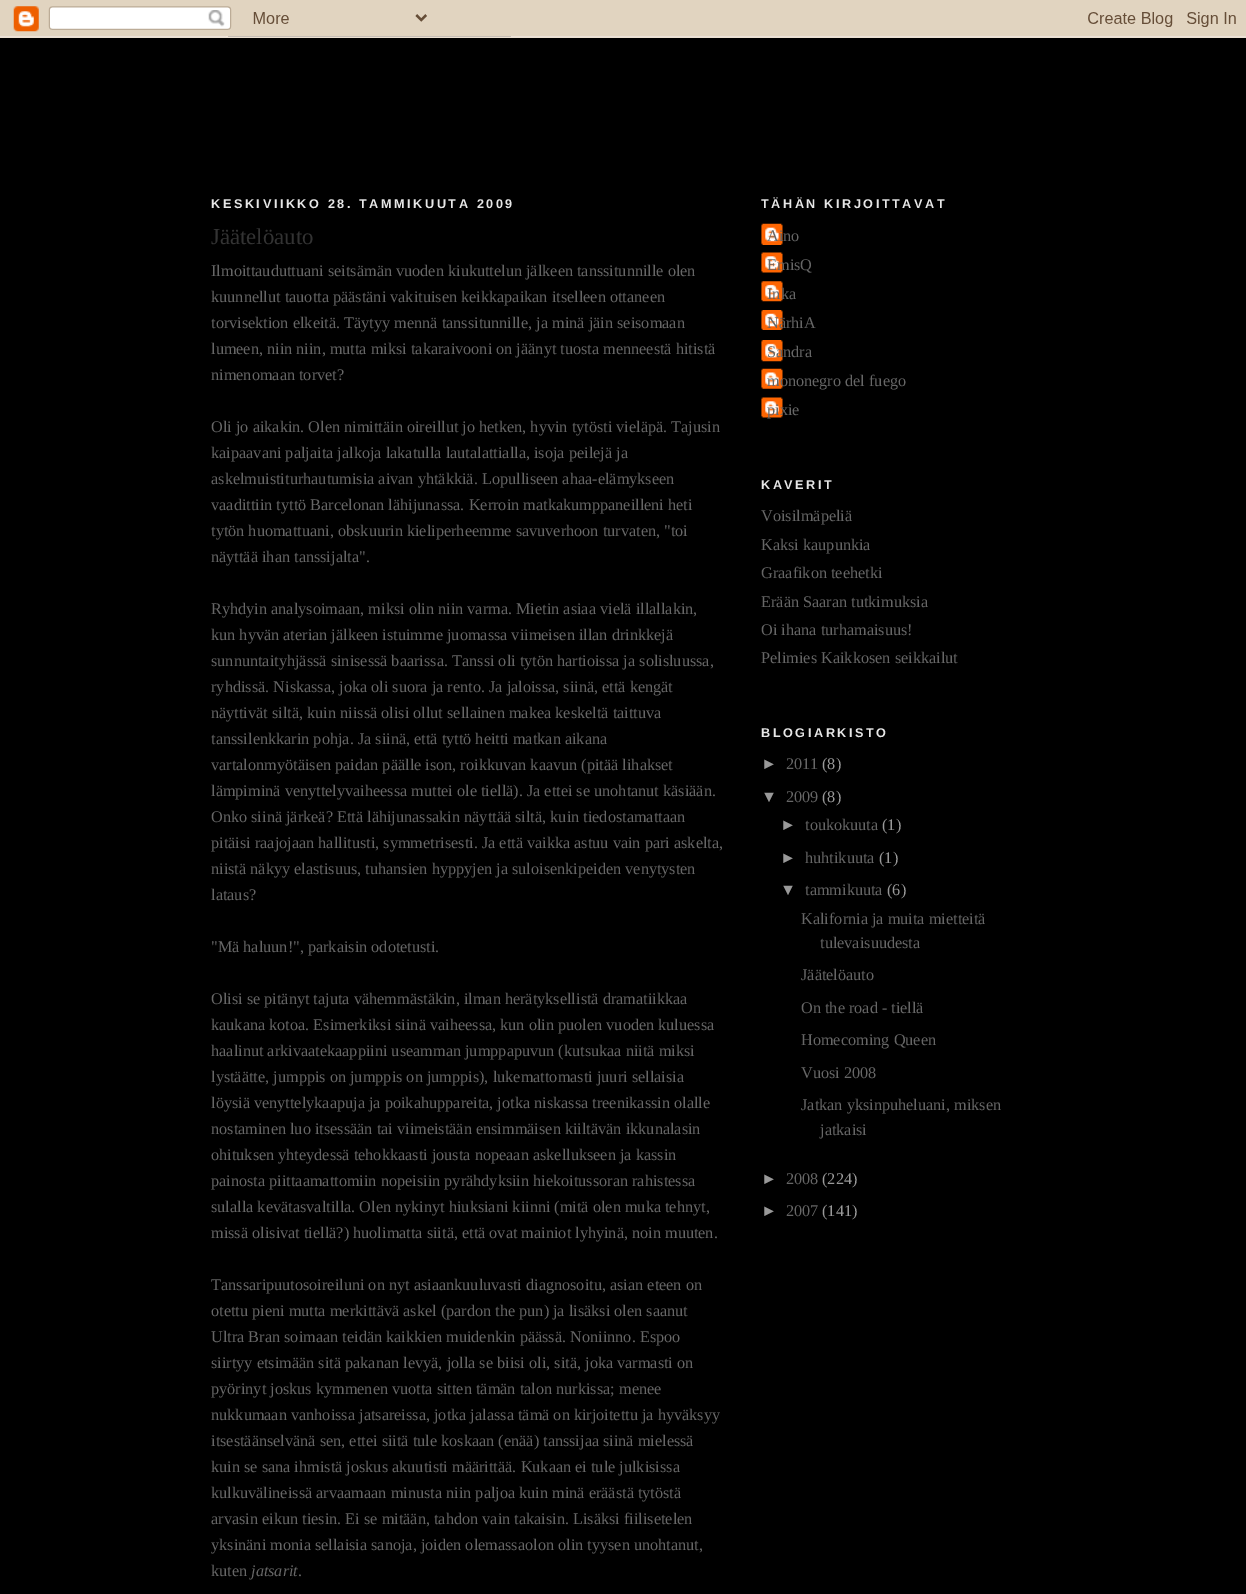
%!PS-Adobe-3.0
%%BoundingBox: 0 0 1246 1594
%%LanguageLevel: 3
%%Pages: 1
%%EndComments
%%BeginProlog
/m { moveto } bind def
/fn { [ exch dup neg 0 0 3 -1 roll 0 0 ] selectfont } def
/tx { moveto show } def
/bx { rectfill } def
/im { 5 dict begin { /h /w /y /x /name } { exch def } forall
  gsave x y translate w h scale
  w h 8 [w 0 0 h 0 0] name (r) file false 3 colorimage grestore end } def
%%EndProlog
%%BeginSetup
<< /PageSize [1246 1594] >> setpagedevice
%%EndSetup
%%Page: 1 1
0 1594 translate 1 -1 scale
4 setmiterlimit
0 setgray
0 0 1246 1594 bx
(image0.raw) 0 0 1246 38 im
/LiberationSans-Bold 12.7 fn
0.902 setgray
211 208 m 2.55 0 (KESKIVIIKKO 28. TAMMIKUUTA 2009) ashow
/LiberationSerif-Regular 22.75 fn
0.2 setgray
(Jäätelöauto) 211 244 tx
/LiberationSerif-Regular 16.25 fn
0.4 setgray
(Ilmoittauduttuani seitsämän vuoden kiukuttelun jälkeen tanssitunnille olen) 211 276 tx
(kuunnellut tauotta päästäni vakituisen keikkapaikan itselleen ottaneen) 211 302 tx
(torvisektion elkeitä. Täytyy mennä tanssitunnille, ja minä jäin seisomaan) 211 328 tx
(lumeen, niin niin, mutta miksi takaraivooni on jäänyt tuosta menneestä hitistä) 211 354 tx
(nimenomaan torvet?) 211 380 tx
(Oli jo aikakin. Olen nimittäin oireillut jo hetken, hyvin tytösti vieläpä. Tajusin) 211 432 tx
(kaipaavani paljaita jalkoja lakatulla lautalattialla, isoja peilejä ja) 211 458 tx
(askelmuistiturhautumisia aivan yhtäkkiä. Lopulliseen ahaa-elämykseen) 211 484 tx
(vaadittiin tyttö Barcelonan lähijunassa. Kerroin matkakumppaneilleni heti) 211 510 tx
(tytön huomattuani, obskuurin kieliperheemme savuverhoon turvaten, "toi) 211 536 tx
(näyttää ihan tanssijalta".) 211 562 tx
(Ryhdyin analysoimaan, miksi olin niin varma. Mietin asiaa vielä illallakin,) 211 614 tx
(kun hyvän aterian jälkeen istuimme juomassa viimeisen illan drinkkejä) 211 640 tx
(sunnuntaityhjässä sinisessä baarissa. Tanssi oli tytön hartioissa ja solisluussa,) 211 666 tx
(ryhdissä. Niskassa, joka oli suora ja rento. Ja jaloissa, siinä, että kengät) 211 692 tx
(näyttivät siltä, kuin niissä olisi ollut sellainen makea keskeltä taittuva) 211 718 tx
(tanssilenkkarin pohja. Ja siinä, että tyttö heitti matkan aikana) 211 744 tx
(vartalonmyötäisen paidan päälle ison, roikkuvan kaavun \(pitää lihakset) 211 770 tx
(lämpiminä venyttelyvaiheessa muttei ole tiellä\). Ja ettei se unohtanut käsiään.) 211 796 tx
(Onko siinä järkeä? Että lähijunassakin näyttää siltä, kuin tiedostamattaan) 211 822 tx
(pitäisi raajojaan hallitusti, symmetrisesti. Ja että vaikka astuu vain pari askelta,) 211 848 tx
(niistä näkyy elastisuus, tuhansien hyppyjen ja suloisenkipeiden venytysten) 211 874 tx
(lataus?) 211 900 tx
("Mä haluun!", parkaisin odotetusti.) 211 952 tx
(Olisi se pitänyt tajuta vähemmästäkin, ilman herätyksellistä dramatiikkaa) 211 1004 tx
(kaukana kotoa. Esimerkiksi siinä vaiheessa, kun olin puolen vuoden kuluessa) 211 1030 tx
(haalinut arkivaatekaappiini useamman jumppapuvun \(kutsukaa niitä miksi) 211 1056 tx
(lystäätte, jumppis on jumppis on jumppis\), lukemattomasti juuri sellaisia) 211 1082 tx
(löysiä venyttelykaapuja ja poikahuppareita, jotka niskassa treenikassin olalle) 211 1108 tx
(nostaminen luo itsessään tai viimeistään ensimmäisen kiiltävän ikkunalasin) 211 1134 tx
(ohituksen yhteydessä tehokkaasti jousta nopeaan askellukseen ja kassin) 211 1160 tx
(painosta piittaamattomiin nopeisiin pyrähdyksiin hiekoitussoran rahistessa) 211 1186 tx
(sulalla kevätasvaltilla. Olen nykinyt hiuksiani kiinni \(mitä olen muka tehnyt,) 211 1212 tx
(missä olisivat tiellä?\) huolimatta siitä, että ovat mainiot lyhyinä, noin muuten.) 211 1238 tx
(Tanssaripuutosoireiluni on nyt asiaankuuluvasti diagnosoitu, asian eteen on) 211 1290 tx
(otettu pieni mutta merkittävä askel \(pardon the pun\) ja lisäksi olen saanut) 211 1316 tx
(Ultra Bran soimaan teidän kaikkien muidenkin päässä. Noniinno. Espoo) 211 1342 tx
(siirtyy etsimään sitä pakanan levyä, jolla se biisi oli, sitä, joka varmasti on) 211 1368 tx
(pyörinyt joskus kymmenen vuotta sitten tämän talon nurkissa; menee) 211 1394 tx
(nukkumaan vanhoissa jatsareissa, jotka jalassa tämä on kirjoitettu ja hyväksyy) 211 1420 tx
(itsestäänselvänä sen, ettei siitä tule koskaan \(enää\) tanssijaa siinä mielessä) 211 1446 tx
(kuin se sana ihmistä joskus akuutisti määrittää. Kukaan ei tule julkisissa) 211 1472 tx
(kulkuvälineissä arvaamaan minusta niin paljoa kuin minä eräästä tytöstä) 211 1498 tx
(arvasin eikun tiesin. Ei se mitään, tahdon vain takaisin. Lisäksi fiilisetelen) 211 1524 tx
(yksinäni monia sellaisia sanoja, joiden olemassaolon olin tyysen unohtanut,) 211 1550 tx
(kuten) 211 1576 tx
/LiberationSerif-Italic 16.25 fn
(jatsarit) 251 1576 tx
/LiberationSerif-Regular 16.25 fn
(.) 298 1576 tx
/LiberationSans-Bold 12.7 fn
0.902 setgray
761 208 m 2.55 0 (TÄHÄN KIRJOITTAVAT) ashow
(image1.raw) 761 223 22 22 im
/LiberationSerif-Regular 16.25 fn
0.4 setgray
(Aino) 767 241 tx
(image2.raw) 761 252 22 21 im
(EmisQ) 767 270 tx
(image3.raw) 761 281 22 21 im
(Inka) 767 299 tx
(image4.raw) 761 310 22 20 im
(NärhiA) 767 328 tx
(image5.raw) 761 340 22 22 im
(Sandra) 767 357 tx
(image6.raw) 761 368 22 21 im
(mononegro del fuego) 767 386 tx
(image2.raw) 761 397 22 21 im
(pixie) 767 415 tx
/LiberationSans-Bold 12.7 fn
0.902 setgray
761 489 m 2.55 0 (KAVERIT) ashow
/LiberationSerif-Regular 16.25 fn
0.4 setgray
(Voisilmäpeliä) 761 521 tx
(Kaksi kaupunkia) 761 550 tx
(Graafikon teehetki) 761 578 tx
(Erään Saaran tutkimuksia) 761 607 tx
(Oi ihana turhamaisuus!) 761 635 tx
(Pelimies Kaikkosen seikkailut) 761 663 tx
/LiberationSans-Bold 12.7 fn
0.902 setgray
761 737 m 2.55 0 (BLOGIARKISTO) ashow
/LiberationSans-Regular 16.25 fn
0.6 setgray
(►) 761 769 tx
/LiberationSerif-Regular 16.25 fn
0.4 setgray
(2011) 786 769 tx
0.6 setgray
(\(8\)) 822 769 tx
/LiberationSans-Regular 16.25 fn
(▼) 761 802 tx
/LiberationSerif-Regular 16.25 fn
0.4 setgray
(2009) 786 802 tx
0.6 setgray
(\(8\)) 822 802 tx
/LiberationSans-Regular 16.25 fn
(►) 780 830 tx
/LiberationSerif-Regular 16.25 fn
0.4 setgray
(toukokuuta) 805 830 tx
0.6 setgray
(\(1\)) 882 830 tx
/LiberationSans-Regular 16.25 fn
(►) 780 863 tx
/LiberationSerif-Regular 16.25 fn
0.4 setgray
(huhtikuuta) 805 863 tx
0.6 setgray
(\(1\)) 879 863 tx
/LiberationSans-Regular 16.25 fn
(▼) 780 895 tx
/LiberationSerif-Regular 16.25 fn
0.4 setgray
(tammikuuta) 805 895 tx
0.6 setgray
(\(6\)) 887 895 tx
0.4 setgray
(Kalifornia ja muita mietteitä) 801 924 tx
(tulevaisuudesta) 820 948 tx
(Jäätelöauto) 801 980 tx
(On the road - tiellä) 801 1013 tx
(Homecoming Queen) 801 1045 tx
(Vuosi 2008) 801 1078 tx
(Jatkan yksinpuheluani, miksen) 801 1110 tx
(jatkaisi) 820 1135 tx
/LiberationSans-Regular 16.25 fn
0.6 setgray
(►) 761 1184 tx
/LiberationSerif-Regular 16.25 fn
0.4 setgray
(2008) 786 1184 tx
0.6 setgray
(\(224\)) 822 1184 tx
/LiberationSans-Regular 16.25 fn
(►) 761 1216 tx
/LiberationSerif-Regular 16.25 fn
0.4 setgray
(2007) 786 1216 tx
0.6 setgray
(\(141\)) 822 1216 tx
showpage
%%EOF
